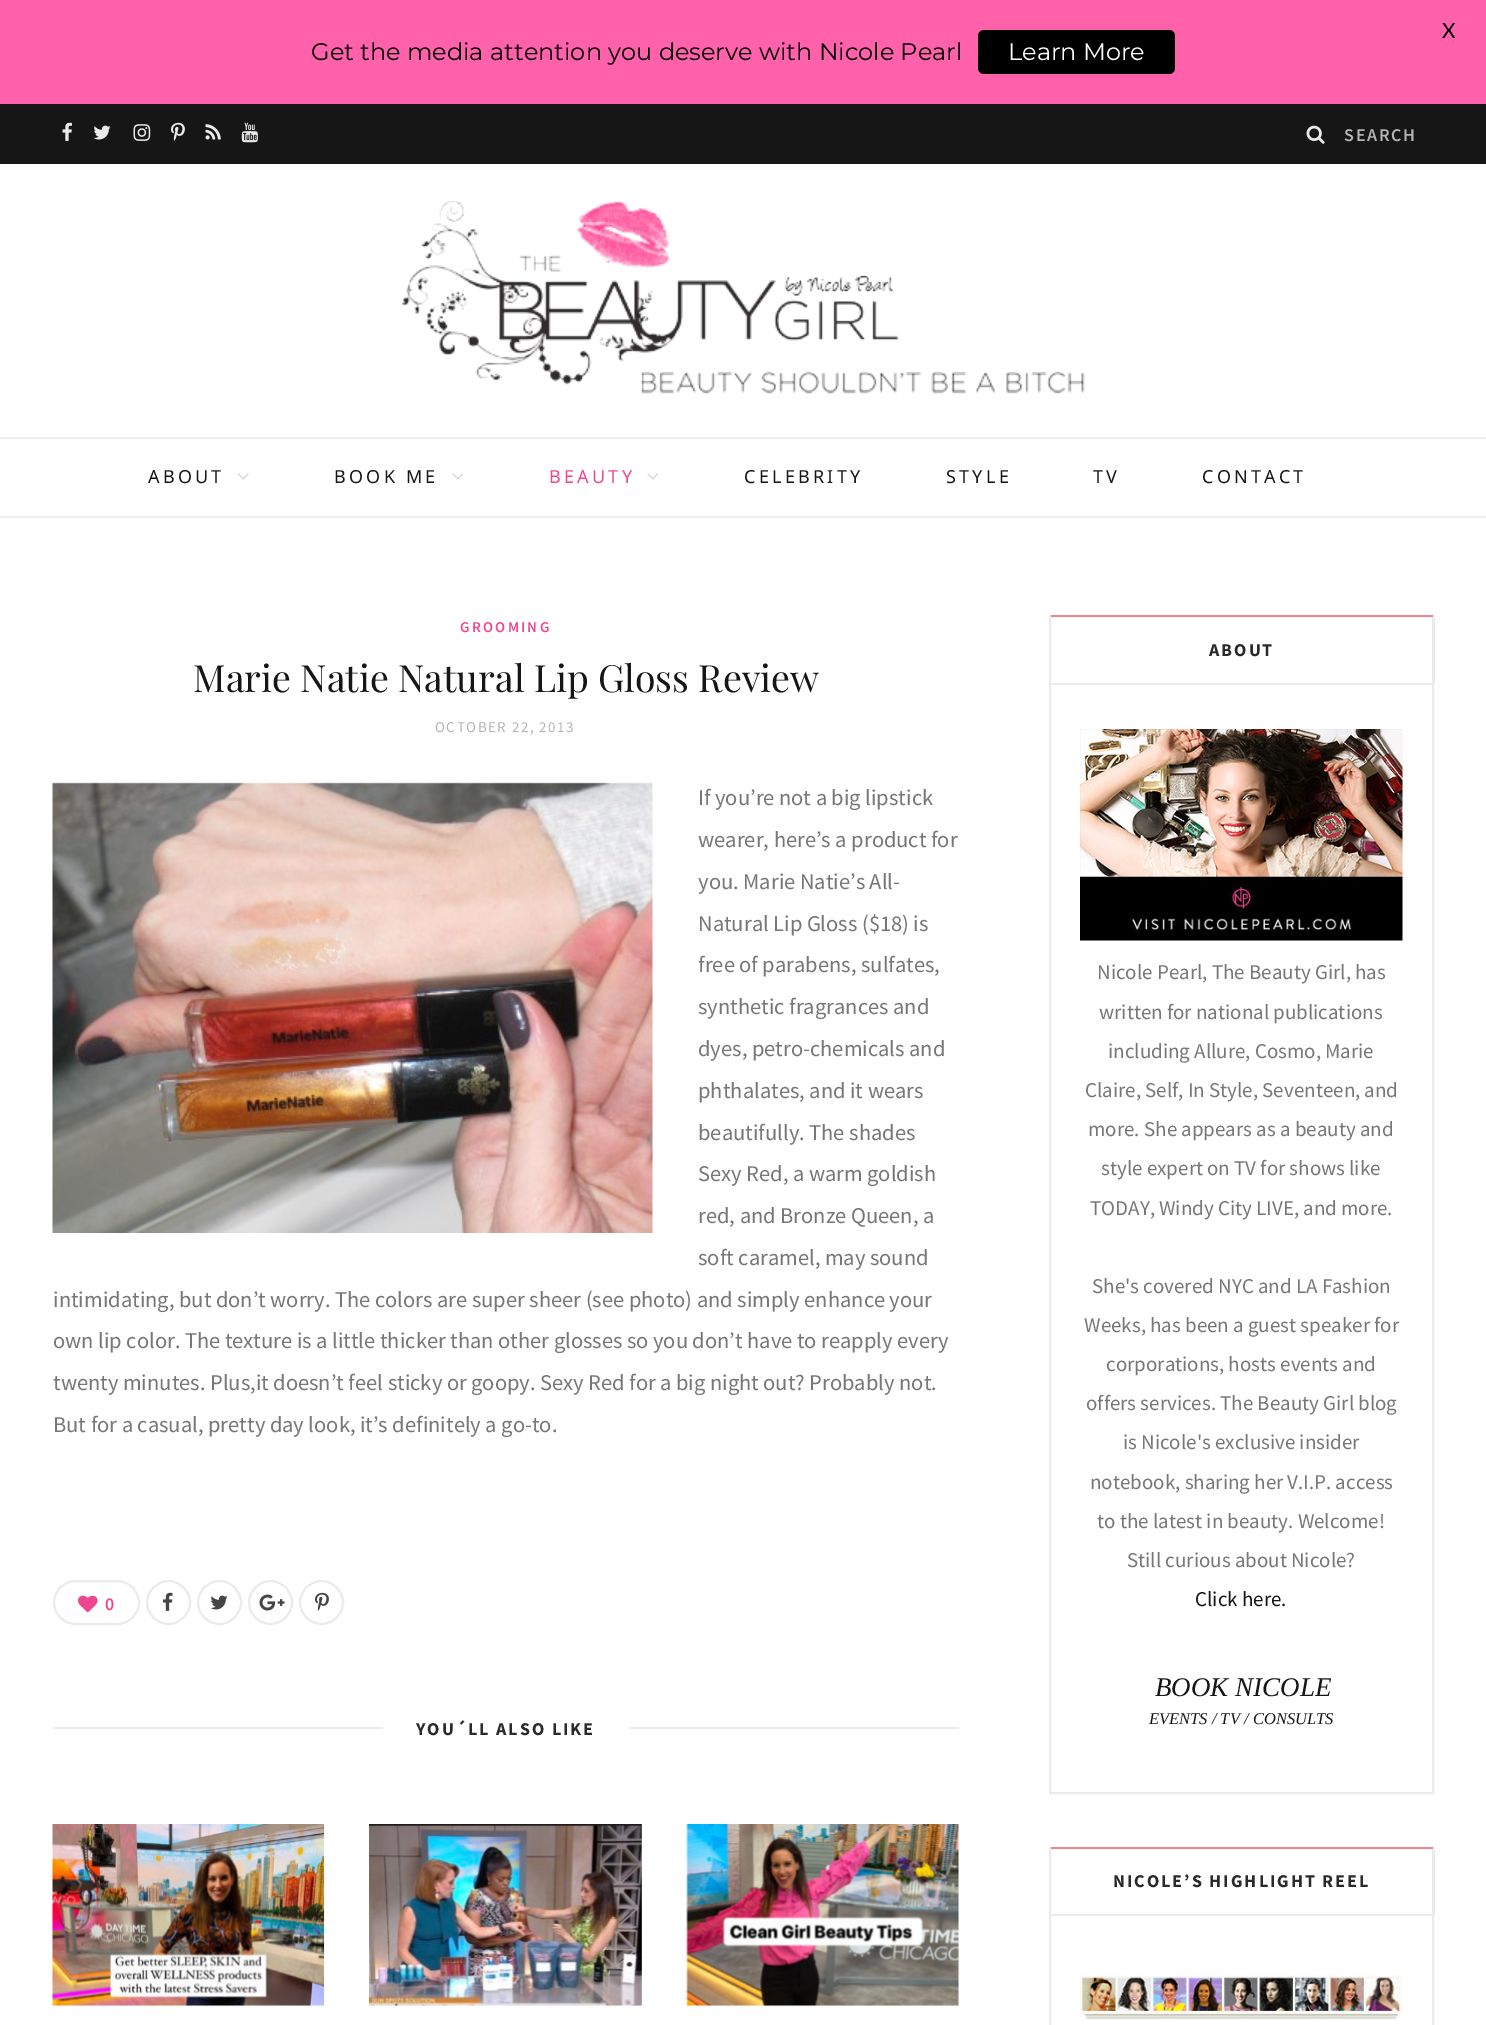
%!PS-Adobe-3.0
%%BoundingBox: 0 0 1486 2025
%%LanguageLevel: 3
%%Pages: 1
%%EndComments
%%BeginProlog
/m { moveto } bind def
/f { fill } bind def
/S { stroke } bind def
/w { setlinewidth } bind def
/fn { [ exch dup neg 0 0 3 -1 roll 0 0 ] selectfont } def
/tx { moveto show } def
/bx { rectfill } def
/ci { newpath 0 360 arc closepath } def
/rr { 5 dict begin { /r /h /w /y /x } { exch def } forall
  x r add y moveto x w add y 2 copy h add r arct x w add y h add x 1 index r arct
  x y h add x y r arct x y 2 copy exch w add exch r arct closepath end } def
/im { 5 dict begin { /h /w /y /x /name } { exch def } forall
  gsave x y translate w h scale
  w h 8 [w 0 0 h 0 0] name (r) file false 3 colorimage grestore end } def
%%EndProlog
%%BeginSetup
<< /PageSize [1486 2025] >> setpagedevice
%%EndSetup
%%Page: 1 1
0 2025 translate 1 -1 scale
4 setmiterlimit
1 setgray
0 0 1486 2025 bx
1 0.384 0.667 setrgbcolor
0 0 1486 104 bx
/Lato-Regular 21 fn
0 setgray
(X) 1442 38 tx
/Montserrat-Regular 24 fn
(Get the media attention you deserve with Nicole Pearl) 311 60 tx
978 30 197 44 6 rr f
1 setgray
(Learn More) 1008 60 tx
0.086 setgray
0 104 1486 60 bx
(image0.raw) 62 122 10 19 im
(image1.raw) 93 125 18 15 im
(image2.raw) 133 124 18 17 im
(image3.raw) 171 122 14 19 im
(image4.raw) 205 124 16 16 im
(image5.raw) 241 122 17 21 im
(image6.raw) 1306 125 19 19 im
/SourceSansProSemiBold-SemiBold 18 fn
0.706 setgray
1344 141 m 1.75 0 (SEARCH) ashow
(image7.raw) 402 201 683 193 im
0.937 setgray
0 437 1486 2 bx
0 516 1486 2 bx
/NotoSans-Regular 18 fn
0.086 setgray
148 483 m 3.25 0 (ABOUT) ashow
(image8.raw) 238 473 11 7 im
334 483 m 3.25 0 (BOOK ME) ashow
(image9.raw) 452 473 11 7 im
0.933 0.275 0.561 setrgbcolor
549 483 m 3.25 0 (BEAUTY) ashow
(image9.raw) 647 473 11 7 im
0.086 setgray
744 483 m 3.25 0 (CELEBRITY) ashow
946 483 m 3.25 0 (STYLE) ashow
1093 483 m 3.25 0 (TV) ashow
1202 483 m 3.25 0 (CONTACT) ashow
/SourceSansProSemiBold-SemiBold 15 fn
0.933 0.275 0.561 setrgbcolor
460 632 m 2.25 0 (GROOMING) ashow
/PlayfairDisplay-Regular 37.5 fn
0.086 setgray
(Marie Natie Natural Lip Gloss Review) 193 692 tx
/SourceSansPro-Regular 15 fn
0.706 setgray
435 732 m 1.5 0 (OCTOBER 22, 2013) ashow
(image10.raw) 52 782 601 451 im
/SourceSansPro-Regular 22.5 fn
0.467 setgray
(If you’re not a big lipstick) 698 805 tx
(wearer, here’s a product for) 698 847 tx
(you. Marie Natie’s All-) 698 889 tx
(Natural Lip Gloss \($18\) is) 698 931 tx
(free of parabens, sulfates,) 698 972 tx
(synthetic fragrances and) 698 1014 tx
(dyes, petro-chemicals and) 698 1056 tx
(phthalates, and it wears) 698 1098 tx
(beautifully. The shades) 698 1140 tx
(Sexy Red, a warm goldish) 698 1181 tx
(red, and Bronze Queen, a) 698 1223 tx
(soft caramel, may sound) 698 1265 tx
(intimidating, but don’t worry. The colors are super sheer \(see photo\) and simply enhance your) 53 1307 tx
(own lip color. The texture is a little thicker than other glosses so you don’t have to reapply every) 53 1348 tx
(twenty minutes. Plus,it doesn’t feel sticky or goopy. Sexy Red for a big night out? Probably not.) 53 1390 tx
(But for a casual, pretty day look, it’s definitely a go-to.) 53 1432 tx
0.922 setgray
2 w
54 1581 85 43 21.5 rr S
(image11.raw) 78 1595 20 18 im
/SourceSansProSemiBold-SemiBold 18 fn
0.933 0.275 0.561 setrgbcolor
(0) 105 1610 tx
0.922 setgray
168.5 1602.5 21.5 ci S
(image12.raw) 163 1592 10 19 im
219.5 1602.5 21.5 ci S
(image13.raw) 210 1595 18 15 im
270.5 1602.5 21.5 ci S
(image14.raw) 259 1594 26 17 im
321.5 1602.5 21.5 ci S
(image15.raw) 315 1592 14 19 im
53 1727 906 2 bx
1 setgray
383 1727 246 2 bx
/SourceSansPro-Bold 18 fn
0.165 setgray
416 1735 m 2 0 (YOU´LL ALSO LIKE) ashow
(image16.raw) 52 1824 273 183 im
(image17.raw) 369 1824 273 182 im
(image18.raw) 686 1824 273 183 im
0.922 setgray
1050 616 383 1177 rectstroke
0.945 0.525 0.541 setrgbcolor
1049 615 385 2 bx
0.922 setgray
1433 615 2 69 bx
1049 683 385 2 bx
1049 615 2 2 bx
0.165 setgray
1209 656 m 2 0 (ABOUT) ashow
(image19.raw) 1080 729 323 212 im
/SourceSansPro-Regular 21 fn
0.467 setgray
(Nicole Pearl, The Beauty Girl, has) 1097 979 tx
(written for national publications) 1099 1019 tx
(including Allure, Cosmo, Marie) 1108 1058 tx
(Claire, Self, In Style, Seventeen, and) 1085 1097 tx
(more. She appears as a beauty and) 1088 1136 tx
(style expert on TV for shows like) 1101 1175 tx
(TODAY, Windy City LIVE, and more.) 1090 1215 tx
(She's covered NYC and LA Fashion) 1092 1293 tx
(Weeks, has been a guest speaker for) 1084 1332 tx
(corporations, hosts events and) 1106 1371 tx
(offers services. The Beauty Girl blog) 1086 1410 tx
(is Nicole's exclusive insider) 1123 1449 tx
(notebook, sharing her V.I.P. access) 1090 1489 tx
(to the latest in beauty. Welcome!) 1097 1528 tx
(Still curious about Nicole?) 1127 1567 tx
0.086 setgray
(Click here.) 1195 1606 tx
/LiberationSerif-Italic 27 fn
(BOOK NICOLE) 1155 1696 tx
/LiberationSerif-Italic 16.5 fn
(EVENTS / TV / CONSULTS) 1149 1724 tx
0.922 setgray
1050 1848 383 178 rectstroke
0.945 0.525 0.541 setrgbcolor
1049 1847 385 2 bx
0.922 setgray
1433 1847 2 69 bx
1049 1914 385 2 bx
1049 1847 2 2 bx
/SourceSansPro-Bold 18 fn
0.165 setgray
1113 1887 m 2 0 (NICOLE’S HIGHLIGHT REEL) ashow
(image20.raw) 1080 1975 322 45 im
showpage
%%EOF
